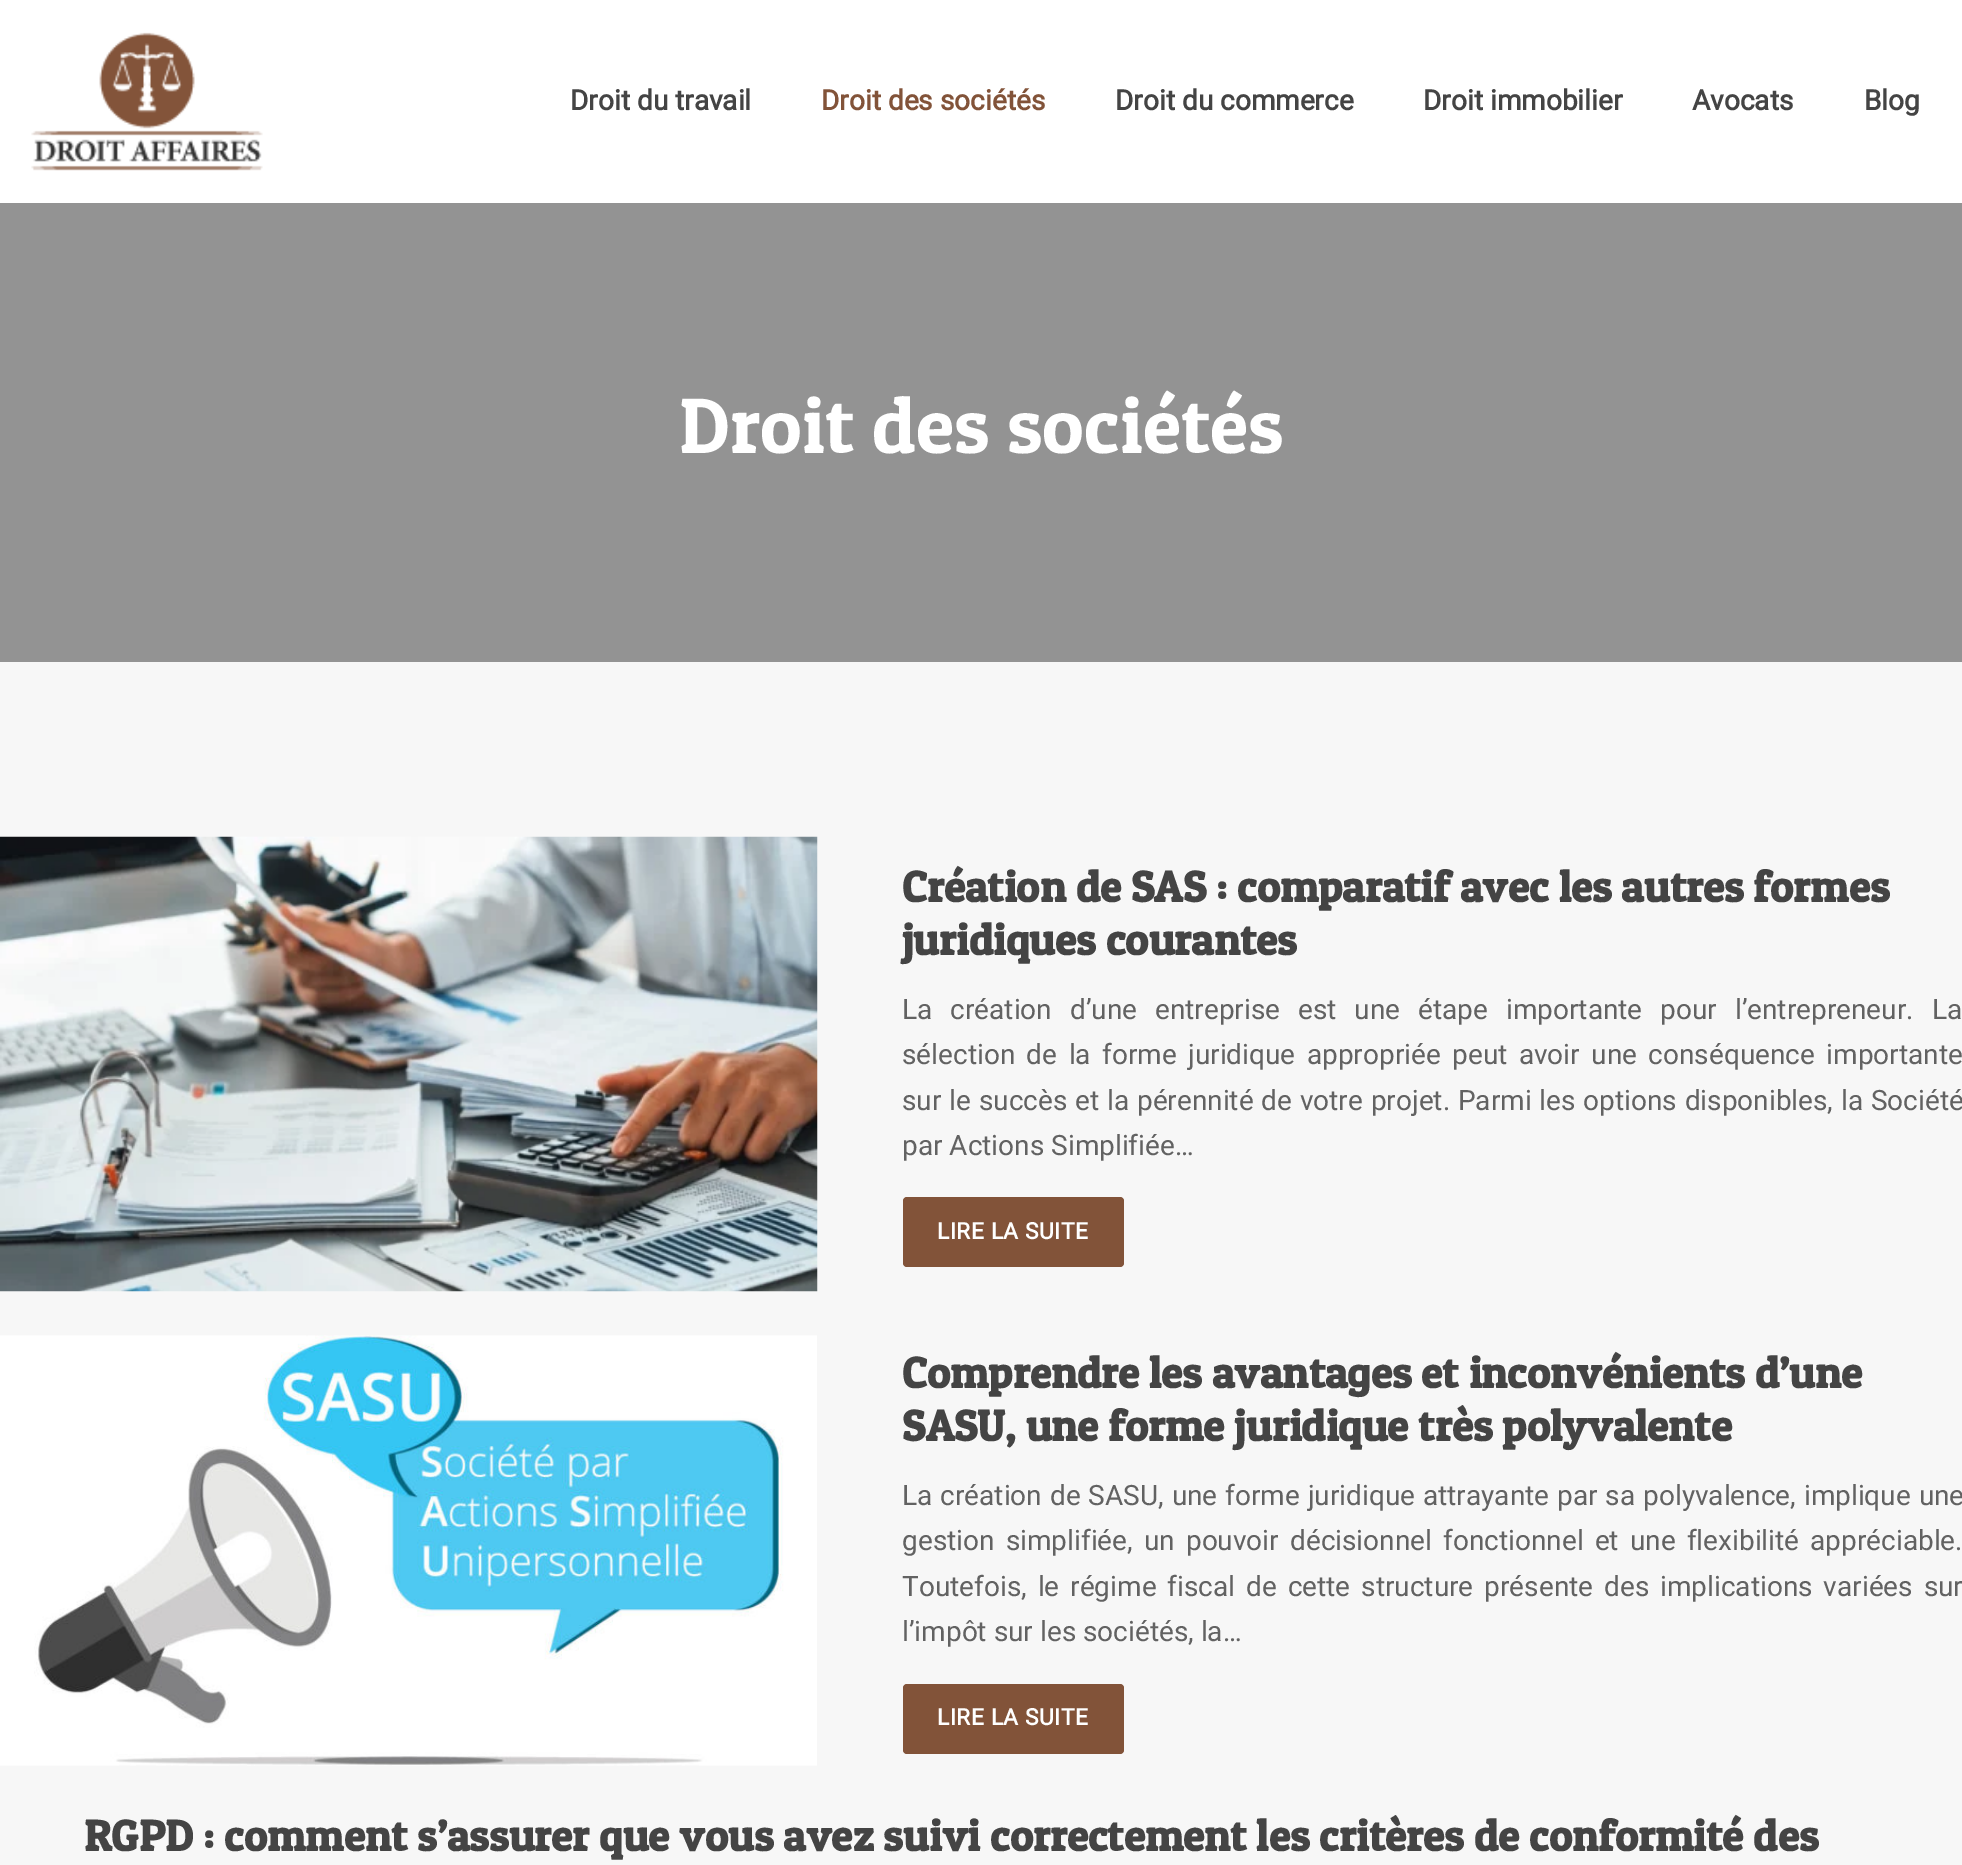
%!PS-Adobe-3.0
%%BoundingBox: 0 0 1962 1865
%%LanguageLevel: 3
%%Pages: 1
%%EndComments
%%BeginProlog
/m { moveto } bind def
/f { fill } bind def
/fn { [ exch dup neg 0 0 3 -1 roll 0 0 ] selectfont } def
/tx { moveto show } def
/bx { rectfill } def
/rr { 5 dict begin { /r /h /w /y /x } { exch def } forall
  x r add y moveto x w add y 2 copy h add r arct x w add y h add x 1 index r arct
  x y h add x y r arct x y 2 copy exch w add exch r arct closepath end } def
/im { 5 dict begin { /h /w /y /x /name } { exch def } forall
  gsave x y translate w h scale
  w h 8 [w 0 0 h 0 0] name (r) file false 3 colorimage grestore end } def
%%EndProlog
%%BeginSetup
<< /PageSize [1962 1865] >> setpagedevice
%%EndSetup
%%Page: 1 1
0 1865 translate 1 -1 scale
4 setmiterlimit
0.969 setgray
0 0 1962 1865 bx
1 setgray
0 0 1962 203 bx
(image0.raw) 31 32 232 139 im
/Roboto-Bold 28 fn
0.267 setgray
(Droit du travail) 570 110 tx
0.51 0.325 0.224 setrgbcolor
(Droit des sociétés) 821 110 tx
0.267 setgray
(Droit du commerce) 1115 110 tx
(Droit immobilier) 1423 110 tx
(Avocats) 1692 110 tx
(Blog) 1864 110 tx
0.576 setgray
0 203 1962 459 bx
/PatuaOne-Regular 78.75 fn
1 setgray
(Droit des sociétés) 679 453 tx
(image1.raw) 0 836 818 456 im
/PatuaOne-Bold 43.75 fn
0.267 setgray
(Création de SAS : comparatif avec les autres formes) 902 902 tx
(juridiques courantes) 902 955 tx
/Roboto-Regular 28 fn
0.384 setgray
902 1019 m 11 0 32 (La création d’une entreprise est une étape importante pour l’entrepreneur. La) widthshow
902 1064 m 4.5 0 32 (sélection de la forme juridique appropriée peut avoir une conséquence importante) widthshow
902 1110 m 0.9 0 32 (sur le succès et la pérennité de votre projet. Parmi les options disponibles, la Société) widthshow
(par Actions Simplifiée…) 902 1155 tx
0.51 0.325 0.224 setrgbcolor
903 1197 221 70 4 rr f
/Roboto-Bold 22.75 fn
1 setgray
937 1239 m 0.5 0 (LIRE LA SUITE) ashow
(image2.raw) 0 1335 817 431 im
/PatuaOne-Bold 43.75 fn
0.267 setgray
(Comprendre les avantages et inconvénients d’une) 902 1388 tx
(SASU, une forme juridique très polyvalente) 902 1441 tx
/Roboto-Regular 28 fn
0.384 setgray
902 1505 m 1 0 32 (La création de SASU, une forme juridique attrayante par sa polyvalence, implique une) widthshow
902 1550 m 4.25 0 32 (gestion simplifiée, un pouvoir décisionnel fonctionnel et une flexibilité appréciable.) widthshow
902 1596 m 4 0 32 (Toutefois, le régime fiscal de cette structure présente des implications variées sur) widthshow
(l’impôt sur les sociétés, la…) 902 1641 tx
0.51 0.325 0.224 setrgbcolor
903 1684 221 70 4 rr f
/Roboto-Bold 22.75 fn
1 setgray
937 1725 m 0.5 0 (LIRE LA SUITE) ashow
/PatuaOne-Bold 43.75 fn
0.267 setgray
(RGPD : comment s’assurer que vous avez suivi correctement les critères de conformité des) 84 1851 tx
showpage
%%EOF
